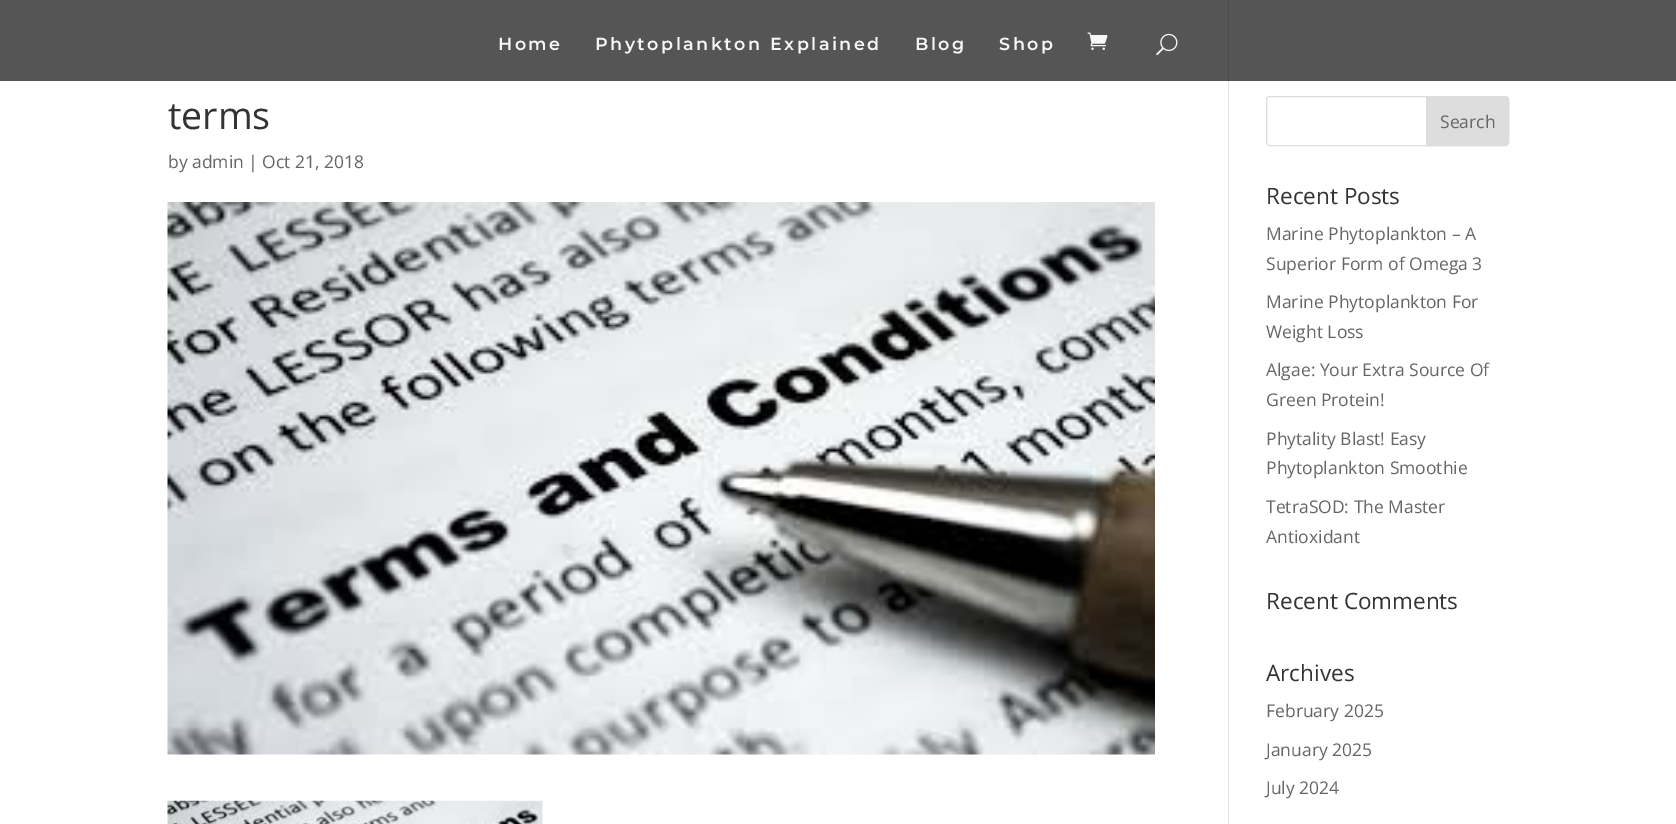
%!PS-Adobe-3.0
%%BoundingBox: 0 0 1676 824
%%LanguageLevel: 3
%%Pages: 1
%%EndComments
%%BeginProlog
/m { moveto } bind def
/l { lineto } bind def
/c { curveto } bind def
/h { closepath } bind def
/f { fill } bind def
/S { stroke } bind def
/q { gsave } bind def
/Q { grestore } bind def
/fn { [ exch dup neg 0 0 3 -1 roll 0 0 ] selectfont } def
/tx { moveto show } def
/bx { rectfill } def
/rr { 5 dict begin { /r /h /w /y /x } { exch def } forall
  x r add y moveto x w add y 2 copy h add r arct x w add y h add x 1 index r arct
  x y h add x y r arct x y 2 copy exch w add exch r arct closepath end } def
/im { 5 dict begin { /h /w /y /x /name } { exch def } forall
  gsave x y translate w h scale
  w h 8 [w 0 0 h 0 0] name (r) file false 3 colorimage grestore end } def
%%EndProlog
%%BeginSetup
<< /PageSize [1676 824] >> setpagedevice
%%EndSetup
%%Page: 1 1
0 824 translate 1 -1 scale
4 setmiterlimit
1 setgray
0 0 1676 824 bx
0.333 setgray
0 0 1676 81 bx
/Montserrat-SemiBold 17.5 fn
0.969 setgray
498 50 m 2.5 0 (Home) ashow
595 50 m 2.5 0 (Phytoplankton Explained) ashow
915 50 m 2.5 0 (Blog) ashow
999 50 m 2.5 0 (Shop) ashow
(image0.raw) 1087 32 21 18 im
(image1.raw) 1156 33 22 23 im
0.886 setgray
1228 81 1 743 bx
0.298 setgray
1228 0 1 81 bx
/OpenSans-Regular 37.5 fn
0.2 setgray
(terms) 168 129 tx
/OpenSans-Regular 17.5 fn
0.4 setgray
(by admin | Oct 21, 2018) 168 168 tx
(image2.raw) 167 202 988 553 im
(image3.raw) 167 800 376 24 im
0.867 setgray
1266.5 96.5 242 49 3.5 rr S
1426.5 96.5 m 1505 96.5 l 1507 96.5 1508.5 98 1508.5 100 c 1508.5 142 l 1508.5 144 1507 145.5 1505 145.5 c 1426.5 145.5 l h q f Q
S
0.4 setgray
(Search) 1440 128 tx
/OpenSans-Regular 22.5 fn
0.2 setgray
(Recent Posts) 1266 204 tx
/OpenSans-Regular 17.5 fn
0.4 setgray
(Marine Phytoplankton – A) 1266 240 tx
(Superior Form of Omega 3) 1266 270 tx
(Marine Phytoplankton For) 1266 308 tx
(Weight Loss) 1266 338 tx
(Algae: Your Extra Source Of) 1266 376 tx
(Green Protein!) 1266 406 tx
(Phytality Blast! Easy) 1266 445 tx
(Phytoplankton Smoothie) 1266 474 tx
(TetraSOD: The Master) 1266 513 tx
(Antioxidant) 1266 543 tx
/OpenSans-Regular 22.5 fn
0.2 setgray
(Recent Comments) 1266 609 tx
(Archives) 1266 681 tx
/OpenSans-Regular 17.5 fn
0.4 setgray
(February 2025) 1266 717 tx
(January 2025) 1266 756 tx
(July 2024) 1266 794 tx
showpage
%%EOF
